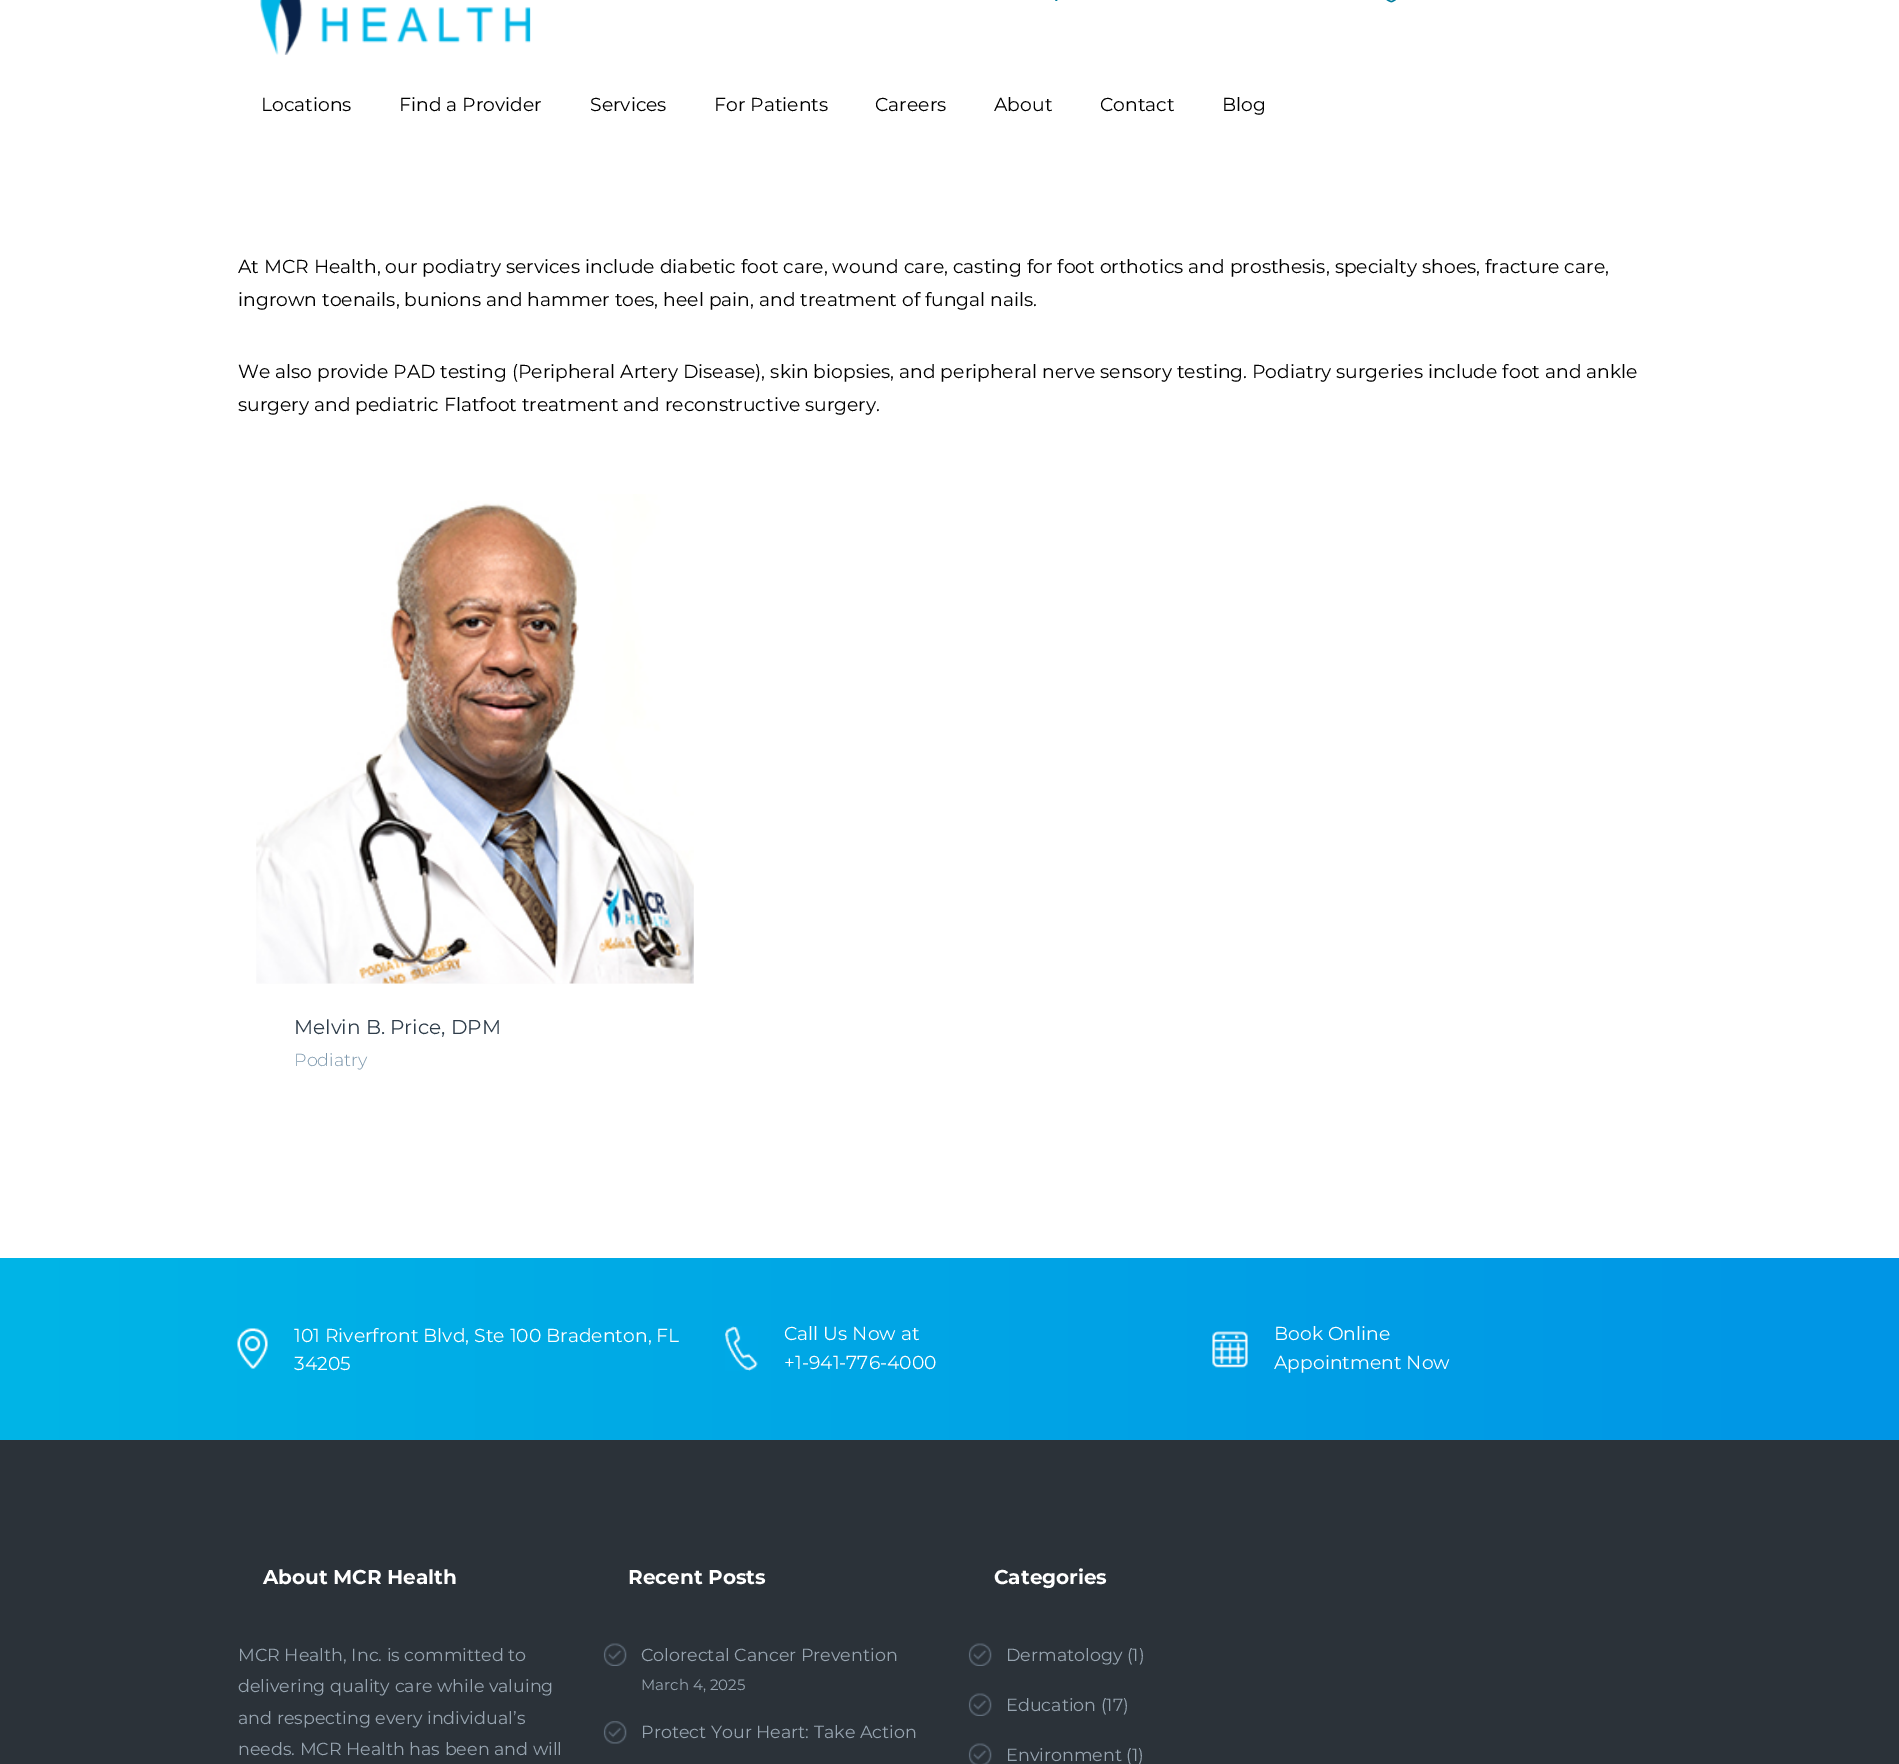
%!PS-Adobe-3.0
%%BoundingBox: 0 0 1899 1764
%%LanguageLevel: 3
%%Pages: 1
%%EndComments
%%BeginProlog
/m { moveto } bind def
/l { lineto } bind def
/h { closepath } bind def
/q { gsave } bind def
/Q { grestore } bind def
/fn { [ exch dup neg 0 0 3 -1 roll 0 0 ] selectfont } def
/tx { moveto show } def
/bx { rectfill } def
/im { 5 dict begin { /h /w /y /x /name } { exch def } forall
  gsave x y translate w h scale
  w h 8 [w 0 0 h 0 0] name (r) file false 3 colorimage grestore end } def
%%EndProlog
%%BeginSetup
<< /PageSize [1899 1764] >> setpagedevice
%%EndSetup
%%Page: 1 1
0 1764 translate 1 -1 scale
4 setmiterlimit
1 setgray
0 0 1899 1764 bx
(image0.raw) 260 0 271 55 im
(image1.raw) 1055 0 3 1 im
(image2.raw) 1386 0 10 3 im
/Montserrat-Regular 18.75 fn
0 setgray
(Locations) 261 111 tx
(Find a Provider) 399 111 tx
(Services) 590 111 tx
(For Patients) 714 111 tx
(Careers) 875 111 tx
(About) 994 111 tx
(Contact) 1100 111 tx
(Blog) 1222 111 tx
(At MCR Health, our podiatry services include diabetic foot care, wound care, casting for foot orthotics and prosthesis, specialty shoes, fracture care,) 238 273 tx
(ingrown toenails, bunions and hammer toes, heel pain, and treatment of fungal nails.) 238 306 tx
(We also provide PAD testing \(Peripheral Artery Disease\), skin biopsies, and peripheral nerve sensory testing. Podiatry surgeries include foot and ankle) 238 378 tx
(surgery and pediatric Flatfoot treatment and reconstructive surgery.) 238 411 tx
(image3.raw) 256 494 438 490 im
/Montserrat-Regular 20 fn
0.184 0.239 0.29 setrgbcolor
(Melvin B. Price, DPM) 294 1034 tx
/Montserrat-Light 17.5 fn
0.49 0.596 0.678 setrgbcolor
(Podiatry) 294 1066 tx
q 0 1258 m 1899 1258 l 1899 1440 l 0 1440 l h clip newpath
<< /ShadingType 2 /ColorSpace /DeviceRGB /Coords [0 1349 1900 1349] /Extend [true true] /Function << /FunctionType 2 /Domain [0 1] /C0 [0 0.71 0.902] /C1 [0 0.584 0.898] /N 1 >> >> shfill Q
(image4.raw) 237 1328 31 41 im
/Montserrat-Regular 18.75 fn
1 setgray
(101 Riverfront Blvd, Ste 100 Bradenton, FL) 294 1342 tx
(34205) 294 1370 tx
(image5.raw) 725 1326 33 45 im
(Call Us Now at) 784 1340 tx
(+1-941-776-4000) 784 1369 tx
(image6.raw) 1212 1331 36 37 im
(Book Online) 1274 1340 tx
(Appointment Now) 1274 1369 tx
0.169 0.196 0.224 setrgbcolor
0 1440 1899 324 bx
/Montserrat-Bold 20 fn
1 setgray
(About MCR Health) 263 1584 tx
/Montserrat-Regular 17.5 fn
0.592 0.643 0.69 setrgbcolor
(MCR Health, Inc. is committed to) 238 1661 tx
(delivering quality care while valuing) 238 1692 tx
(and respecting every individual’s) 238 1724 tx
(needs. MCR Health has been and will) 238 1755 tx
/Montserrat-Bold 20 fn
1 setgray
(Recent Posts) 628 1584 tx
(image7.raw) 603 1643 24 23 im
/Montserrat-Regular 17.5 fn
0.592 0.643 0.69 setrgbcolor
(Colorectal Cancer Prevention) 641 1661 tx
/Montserrat-Regular 15 fn
(March 4, 2025) 641 1690 tx
(image8.raw) 603 1721 24 23 im
/Montserrat-Regular 17.5 fn
(Protect Your Heart: Take Action) 641 1738 tx
/Montserrat-Bold 20 fn
1 setgray
(Categories) 994 1584 tx
(image9.raw) 968 1643 24 23 im
/Montserrat-Regular 17.5 fn
0.592 0.643 0.69 setrgbcolor
(Dermatology \(1\)) 1006 1661 tx
(image9.raw) 968 1693 24 23 im
(Education \(17\)) 1006 1711 tx
(image10.raw) 968 1743 24 21 im
(Environment \(1\)) 1006 1761 tx
showpage
%%EOF
